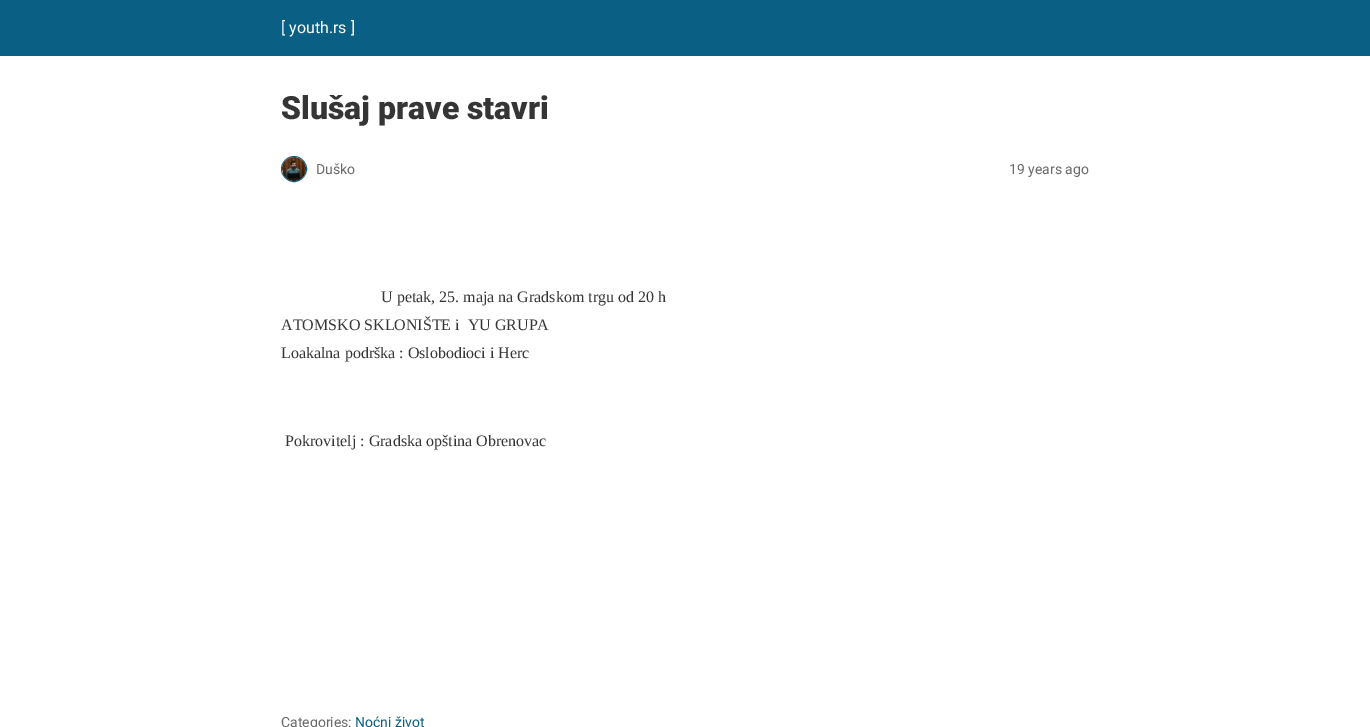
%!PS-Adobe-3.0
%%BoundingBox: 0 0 1370 727
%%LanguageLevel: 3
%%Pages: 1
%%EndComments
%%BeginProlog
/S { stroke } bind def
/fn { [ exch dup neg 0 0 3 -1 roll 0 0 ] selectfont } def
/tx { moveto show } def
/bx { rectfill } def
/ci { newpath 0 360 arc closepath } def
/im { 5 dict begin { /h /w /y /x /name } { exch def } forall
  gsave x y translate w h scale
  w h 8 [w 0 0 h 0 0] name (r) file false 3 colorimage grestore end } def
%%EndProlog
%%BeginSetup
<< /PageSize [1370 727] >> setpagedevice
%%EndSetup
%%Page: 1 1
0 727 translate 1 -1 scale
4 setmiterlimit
1 setgray
0 0 1370 727 bx
0.039 0.373 0.522 setrgbcolor
0 0 1370 56 bx
/Roboto-Regular 16 fn
1 setgray
([ youth.rs ]) 281 33 tx
/Roboto-Black 32 fn
0.208 setgray
(Slušaj prave stavri) 281 119 tx
0.039 0.373 0.522 setrgbcolor
294 169 12.5 ci S
(image0.raw) 282 157 24 24 im
/Roboto-Regular 14 fn
0.412 setgray
(Duško) 316 174 tx
(19 years ago) 1009 174 tx
/LiberationSerif-Regular 16 fn
0.208 setgray
(U petak, 25. maja na Gradskom trgu od 20 h) 381 302 tx
(ATOMSKO SKLONIŠTE i  YU GRUPA) 281 330 tx
(Loakalna podrška : Oslobodioci i Herc) 281 358 tx
(Pokrovitelj : Gradska opština Obrenovac) 285 446 tx
/Roboto-Regular 14 fn
0.412 setgray
(Categories:) 281 727 tx
0.039 0.373 0.522 setrgbcolor
(Noćni život) 355 727 tx
showpage
%%EOF
